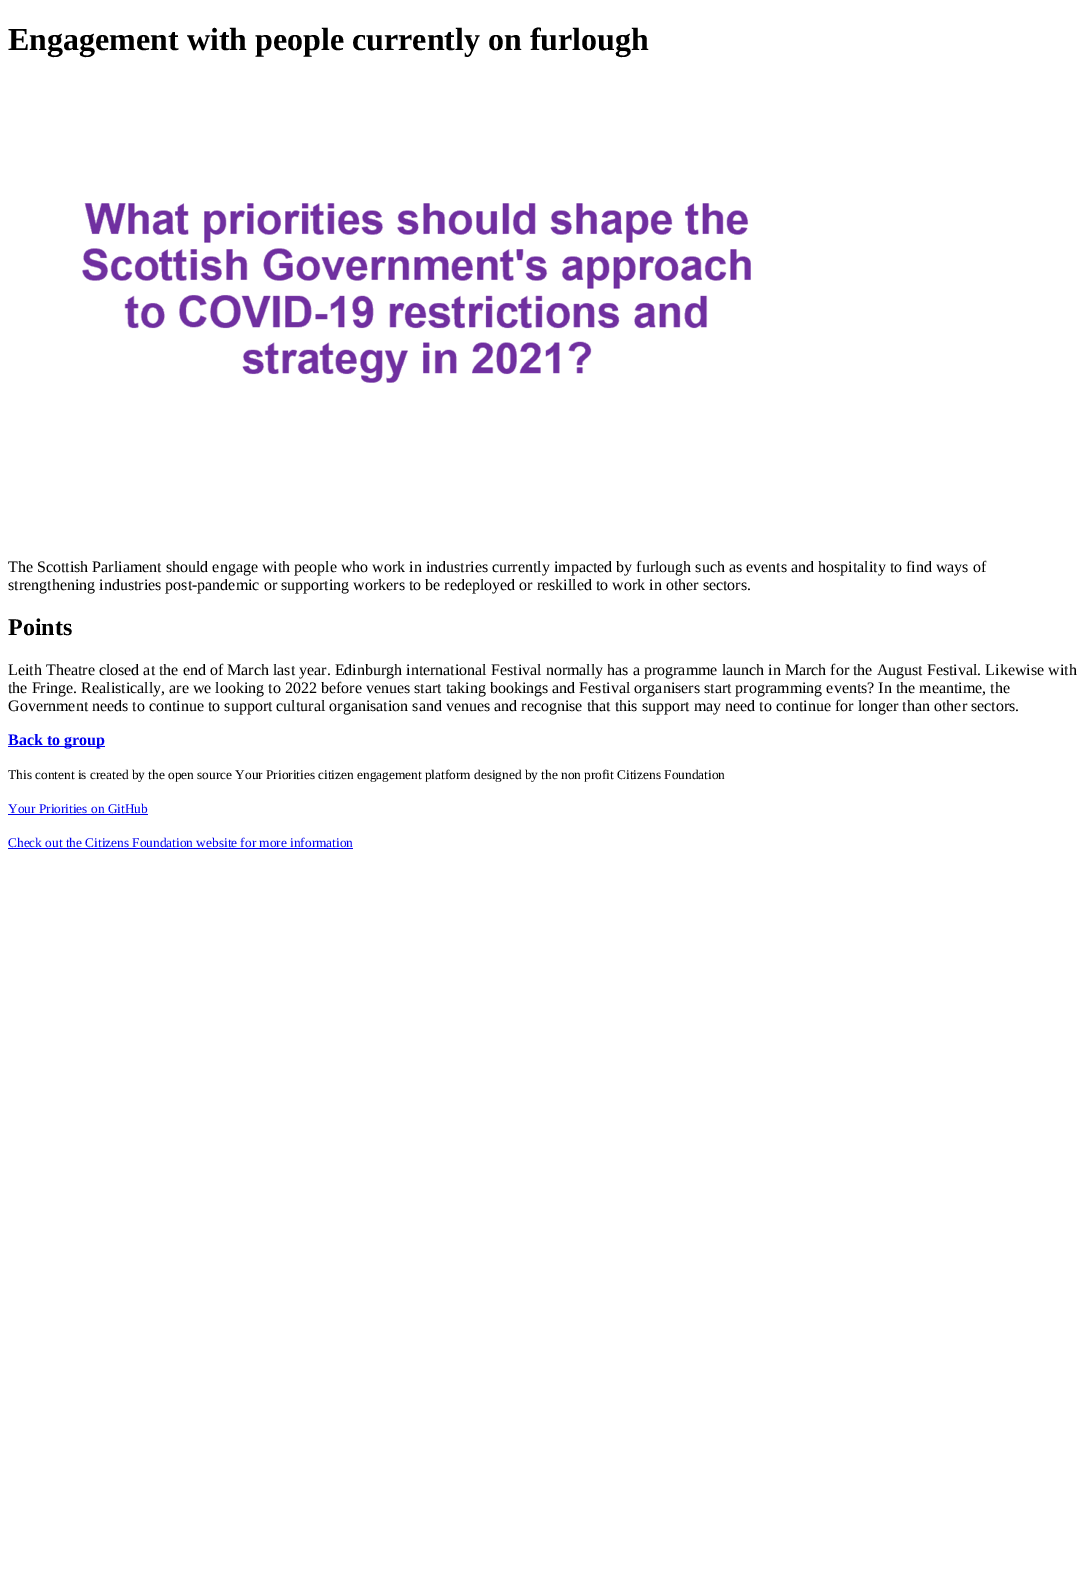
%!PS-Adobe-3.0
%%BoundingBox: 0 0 1085 1580
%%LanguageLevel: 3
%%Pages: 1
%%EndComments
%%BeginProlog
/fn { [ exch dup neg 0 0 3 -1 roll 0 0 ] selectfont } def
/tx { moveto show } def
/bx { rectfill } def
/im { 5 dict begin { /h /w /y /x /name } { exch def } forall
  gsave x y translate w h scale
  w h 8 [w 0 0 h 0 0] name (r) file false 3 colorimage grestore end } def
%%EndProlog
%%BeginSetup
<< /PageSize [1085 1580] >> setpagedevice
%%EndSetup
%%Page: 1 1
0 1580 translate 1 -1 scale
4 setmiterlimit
1 setgray
0 0 1085 1580 bx
/LiberationSerif-Bold 32 fn
0 setgray
(Engagement with people currently on furlough) 8 50 tx
(image0.raw) 82 203 669 180 im
/LiberationSerif-Regular 16 fn
(The Scottish Parliament should engage with people who work in industries currently impacted by furlough such as events and hospitality to find ways of) 8 572 tx
(strengthening industries post-pandemic or supporting workers to be redeployed or reskilled to work in other sectors.) 8 590 tx
/LiberationSerif-Bold 24 fn
(Points) 8 635 tx
/LiberationSerif-Regular 16 fn
(Leith Theatre closed at the end of March last year. Edinburgh international Festival normally has a programme launch in March for the August Festival. Likewise with) 8 675 tx
(the Fringe. Realistically, are we looking to 2022 before venues start taking bookings and Festival organisers start programming events? In the meantime, the) 8 693 tx
(Government needs to continue to support cultural organisation sand venues and recognise that this support may need to continue for longer than other sectors.) 8 711 tx
0 0 0.933 setrgbcolor
8 746 97 1 bx
/LiberationSerif-Bold 16 fn
(Back to group) 8 745 tx
/LiberationSerif-Regular 13.33 fn
0 setgray
(This content is created by the open source Your Priorities citizen engagement platform designed by the non profit Citizens Foundation) 8 779 tx
0 0 0.933 setrgbcolor
(Your Priorities on GitHub) 8 813 tx
8 814 140 1 bx
(Check out the Citizens Foundation website for more information) 8 847 tx
8 848 345 1 bx
showpage
%%EOF
